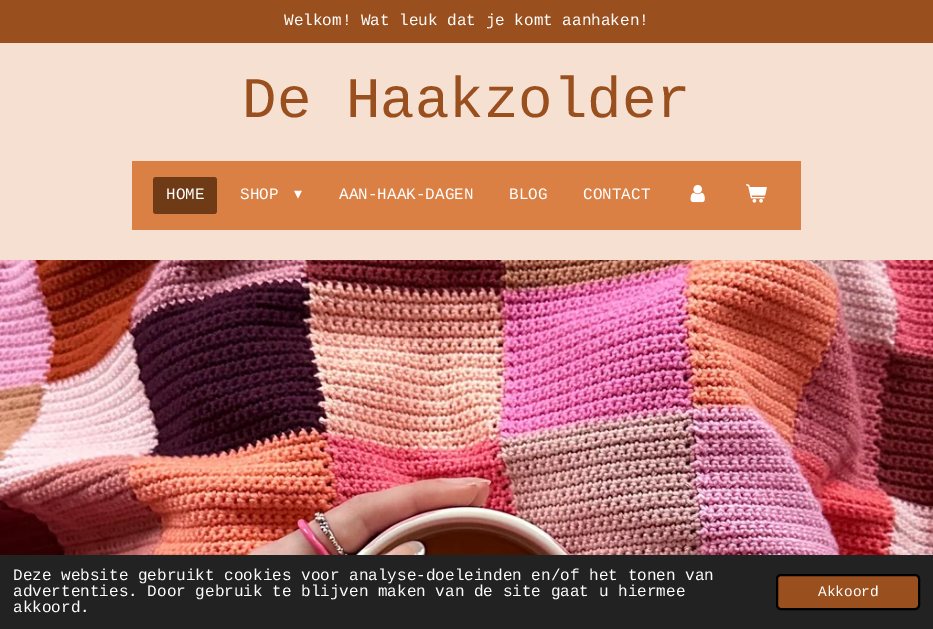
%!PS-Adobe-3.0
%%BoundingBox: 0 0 933 629
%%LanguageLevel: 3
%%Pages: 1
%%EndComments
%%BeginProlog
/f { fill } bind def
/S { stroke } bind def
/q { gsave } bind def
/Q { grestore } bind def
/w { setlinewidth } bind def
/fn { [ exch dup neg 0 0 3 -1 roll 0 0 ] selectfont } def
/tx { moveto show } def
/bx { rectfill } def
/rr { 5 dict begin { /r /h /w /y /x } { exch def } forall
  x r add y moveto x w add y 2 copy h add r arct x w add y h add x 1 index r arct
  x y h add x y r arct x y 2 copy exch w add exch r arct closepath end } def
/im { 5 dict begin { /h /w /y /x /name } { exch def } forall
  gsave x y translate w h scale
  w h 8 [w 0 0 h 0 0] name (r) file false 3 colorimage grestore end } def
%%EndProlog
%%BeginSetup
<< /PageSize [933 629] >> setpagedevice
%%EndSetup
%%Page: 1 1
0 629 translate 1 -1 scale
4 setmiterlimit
0.965 0.878 0.824 setrgbcolor
0 0 933 629 bx
0.604 0.314 0.118 setrgbcolor
0 0 933 43 bx
/LiberationMono-Regular 16 fn
1 setgray
(Welkom! Wat leuk dat je komt aanhaken!) 284 25 tx
/LiberationMono-Regular 57.5 fn
0.604 0.314 0.118 setrgbcolor
(De Haakzolder) 242 117 tx
0.855 0.502 0.267 setrgbcolor
132 161 669 69 bx
0.435 0.227 0.086 setrgbcolor
153 177 64 37 3 rr f
/LiberationMono-Regular 16 fn
1 setgray
(HOME) 166 199 tx
(SHOP) 240 199 tx
/DejaVuSans-Regular 16 fn
(▾) 294 199 tx
/LiberationMono-Regular 16 fn
(AAN-HAAK-DAGEN) 339 199 tx
(BLOG) 509 199 tx
(CONTACT) 583 199 tx
(image0.raw) 690 184 15 19 im
(image1.raw) 746 184 21 19 im
(image2.raw) 0 260 933 295 im
0.133 setgray
0 555 933 74 bx
1 setgray
(Deze website gebruikt cookies voor analyse-doeleinden en/of het tonen van) 13 580 tx
(advertenties. Door gebruik te blijven maken van de site gaat u hiermee) 13 596 tx
(akkoord.) 13 612 tx
0.604 0.314 0.118 setrgbcolor
777 575 142 34 4 rr q f Q
0 setgray
2 w
S
/LiberationMono-Regular 14.5 fn
1 setgray
(Akkoord) 818 596 tx
showpage
%%EOF
